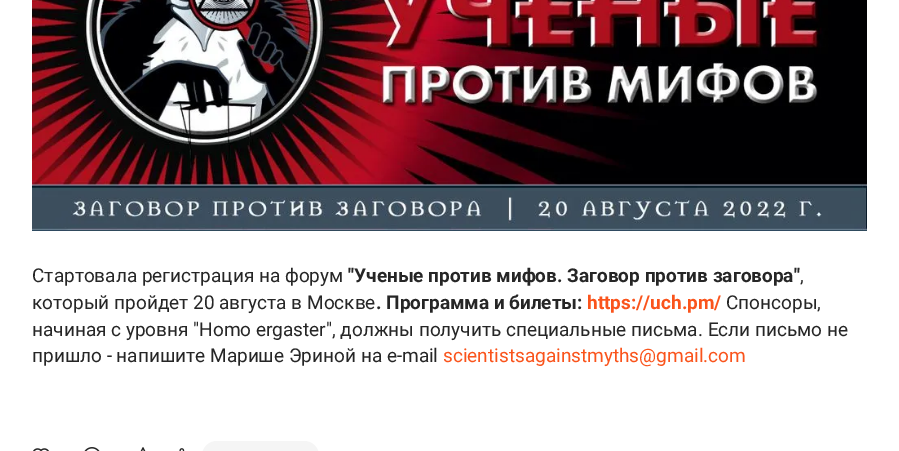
%!PS-Adobe-3.0
%%BoundingBox: 0 0 899 451
%%LanguageLevel: 3
%%Pages: 1
%%EndComments
%%BeginProlog
/f { fill } bind def
/fn { [ exch dup neg 0 0 3 -1 roll 0 0 ] selectfont } def
/tx { moveto show } def
/bx { rectfill } def
/rr { 5 dict begin { /r /h /w /y /x } { exch def } forall
  x r add y moveto x w add y 2 copy h add r arct x w add y h add x 1 index r arct
  x y h add x y r arct x y 2 copy exch w add exch r arct closepath end } def
/im { 5 dict begin { /h /w /y /x /name } { exch def } forall
  gsave x y translate w h scale
  w h 8 [w 0 0 h 0 0] name (r) file false 3 colorimage grestore end } def
%%EndProlog
%%BeginSetup
<< /PageSize [899 451] >> setpagedevice
%%EndSetup
%%Page: 1 1
0 451 translate 1 -1 scale
4 setmiterlimit
1 setgray
0 0 899 451 bx
(image0.raw) 32 0 835 231 im
/Roboto-Regular 19 fn
0.149 setgray
(Стартовала регистрация на форум) 32 282 tx
/Roboto-Bold 19 fn
("Ученые против мифов. Заговор против заговора") 348 282 tx
/Roboto-Regular 19 fn
(,) 800 282 tx
(который пройдет 20 августа в Москве) 32 309 tx
/Roboto-Bold 19 fn
(. Программа и билеты:) 376 309 tx
0.98 0.329 0.11 setrgbcolor
(https://uch.pm/) 587 309 tx
/Roboto-Regular 19 fn
0.149 setgray
(Спонсоры,) 726 309 tx
(начиная с уровня "Homo ergaster", должны получить специальные письма. Если письмо не) 32 336 tx
(пришло - напишите Марише Эриной на e-mail) 32 362 tx
0.98 0.329 0.11 setrgbcolor
(scientistsagainstmyths@gmail.com) 443 362 tx
(image1.raw) 33 448 16 3 im
(image2.raw) 84 447 16 4 im
(image3.raw) 140 447 6 4 im
(image4.raw) 179 448 6 3 im
0.961 setgray
202 441 117 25 15 rr f
showpage
%%EOF
